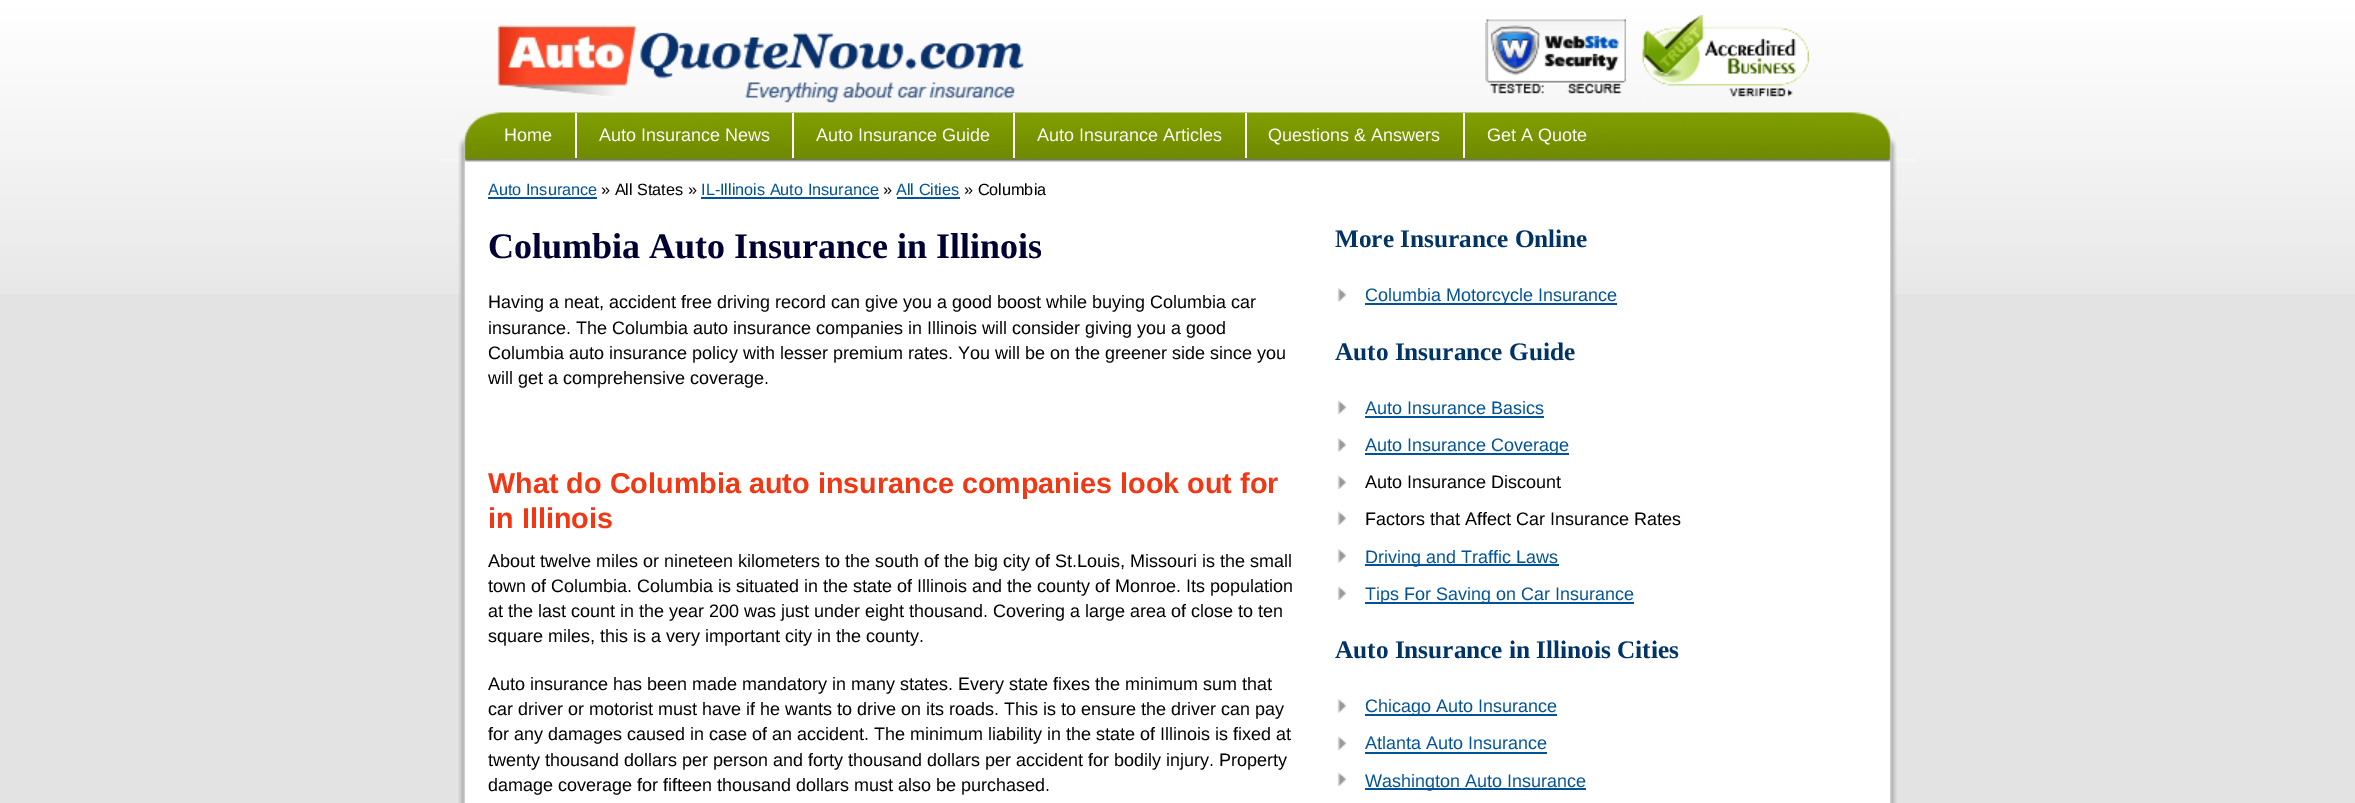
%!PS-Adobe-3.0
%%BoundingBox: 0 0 2355 803
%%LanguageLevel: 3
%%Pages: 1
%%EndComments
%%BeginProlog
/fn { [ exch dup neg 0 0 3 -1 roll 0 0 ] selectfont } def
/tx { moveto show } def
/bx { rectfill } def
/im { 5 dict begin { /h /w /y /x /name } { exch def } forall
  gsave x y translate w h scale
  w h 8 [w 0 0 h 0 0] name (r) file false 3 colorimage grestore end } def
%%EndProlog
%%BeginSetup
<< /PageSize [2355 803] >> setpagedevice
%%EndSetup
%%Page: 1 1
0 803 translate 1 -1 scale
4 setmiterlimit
0.89 setgray
0 0 2355 803 bx
(image0.raw) 0 0 2355 294 im
(image1.raw) 497 25 528 78 im
(image2.raw) 1485 19 141 75 im
(image3.raw) 1642 15 167 82 im
0.961 setgray
438 158 1479 4 bx
(image4.raw) 458 112 1439 50 im
/LiberationSans-Regular 18 fn
1 setgray
(Home) 504 141 tx
575 113 2 45 bx
(Auto Insurance News) 599 141 tx
792 113 2 45 bx
(Auto Insurance Guide) 816 141 tx
1013 113 2 45 bx
(Auto Insurance Articles) 1037 141 tx
1245 113 2 45 bx
(Questions & Answers) 1268 141 tx
1463 113 2 45 bx
(Get A Quote) 1487 141 tx
(image5.raw) 458 162 1439 641 im
465 162 1425 641 bx
/LiberationSans-Regular 16.25 fn
0 0.325 0.6 setrgbcolor
(Auto Insurance) 488 195 tx
488 197 109 2 bx
0 setgray
(» All States ») 601 195 tx
0 0.325 0.6 setrgbcolor
(IL-Illinois Auto Insurance) 701 195 tx
701 197 178 2 bx
0 setgray
(») 883 195 tx
0 0.325 0.6 setrgbcolor
(All Cities) 896 195 tx
897 197 63 2 bx
0 setgray
(» Columbia) 964 195 tx
/LiberationSerif-Bold 36 fn
0 0 0.2 setrgbcolor
(Columbia Auto Insurance in Illinois) 488 258 tx
/LiberationSans-Regular 18 fn
0 setgray
(Having a neat, accident free driving record can give you a good boost while buying Columbia car) 488 308 tx
(insurance. The Columbia auto insurance companies in Illinois will consider giving you a good) 488 334 tx
(Columbia auto insurance policy with lesser premium rates. You will be on the greener side since you) 488 359 tx
(will get a comprehensive coverage.) 488 384 tx
/LiberationSans-Bold 28.8 fn
0.941 0.22 0.082 setrgbcolor
(What do Columbia auto insurance companies look out for) 488 493 tx
(in Illinois) 488 528 tx
/LiberationSans-Regular 18 fn
0 setgray
(About twelve miles or nineteen kilometers to the south of the big city of St.Louis, Missouri is the small) 488 567 tx
(town of Columbia. Columbia is situated in the state of Illinois and the county of Monroe. Its population) 488 592 tx
(at the last count in the year 200 was just under eight thousand. Covering a large area of close to ten) 488 617 tx
(square miles, this is a very important city in the county.) 488 642 tx
(Auto insurance has been made mandatory in many states. Every state fixes the minimum sum that) 488 690 tx
(car driver or motorist must have if he wants to drive on its roads. This is to ensure the driver can pay) 488 715 tx
(for any damages caused in case of an accident. The minimum liability in the state of Illinois is fixed at) 488 740 tx
(twenty thousand dollars per person and forty thousand dollars per accident for bodily injury. Property) 488 766 tx
(damage coverage for fifteen thousand dollars must also be purchased.) 488 791 tx
/LiberationSerif-Bold 25.25 fn
0 0.2 0.4 setrgbcolor
(More Insurance Online) 1335 247 tx
(image6.raw) 1337 288 9 14 im
0 0.325 0.6 setrgbcolor
1365 303 252 2 bx
/LiberationSans-Regular 18 fn
(Columbia Motorcycle Insurance) 1365 301 tx
/LiberationSerif-Bold 25.25 fn
0 0.2 0.4 setrgbcolor
(Auto Insurance Guide) 1335 360 tx
(image7.raw) 1337 400 9 14 im
/LiberationSans-Regular 18 fn
0 0.325 0.6 setrgbcolor
(Auto Insurance Basics) 1365 414 tx
1365 416 179 2 bx
(image6.raw) 1337 438 9 14 im
1365 453 204 2 bx
(Auto Insurance Coverage) 1365 451 tx
(image7.raw) 1337 475 9 14 im
0 setgray
(Auto Insurance Discount) 1365 488 tx
(image7.raw) 1337 511 9 14 im
(Factors that Affect Car Insurance Rates) 1365 525 tx
(image6.raw) 1337 549 9 14 im
0 0.325 0.6 setrgbcolor
1365 564 194 2 bx
(Driving and Traffic Laws) 1365 563 tx
(image7.raw) 1337 586 9 14 im
1365 602 269 2 bx
(Tips For Saving on Car Insurance) 1365 600 tx
/LiberationSerif-Bold 25.25 fn
0 0.2 0.4 setrgbcolor
(Auto Insurance in Illinois Cities) 1335 658 tx
(image6.raw) 1337 699 9 14 im
0 0.325 0.6 setrgbcolor
1365 714 192 2 bx
/LiberationSans-Regular 18 fn
(Chicago Auto Insurance) 1365 712 tx
(image7.raw) 1337 736 9 14 im
(Atlanta Auto Insurance) 1365 749 tx
1365 752 182 2 bx
(image7.raw) 1337 772 9 14 im
1365 788 221 2 bx
(Washington Auto Insurance) 1365 787 tx
showpage
%%EOF
